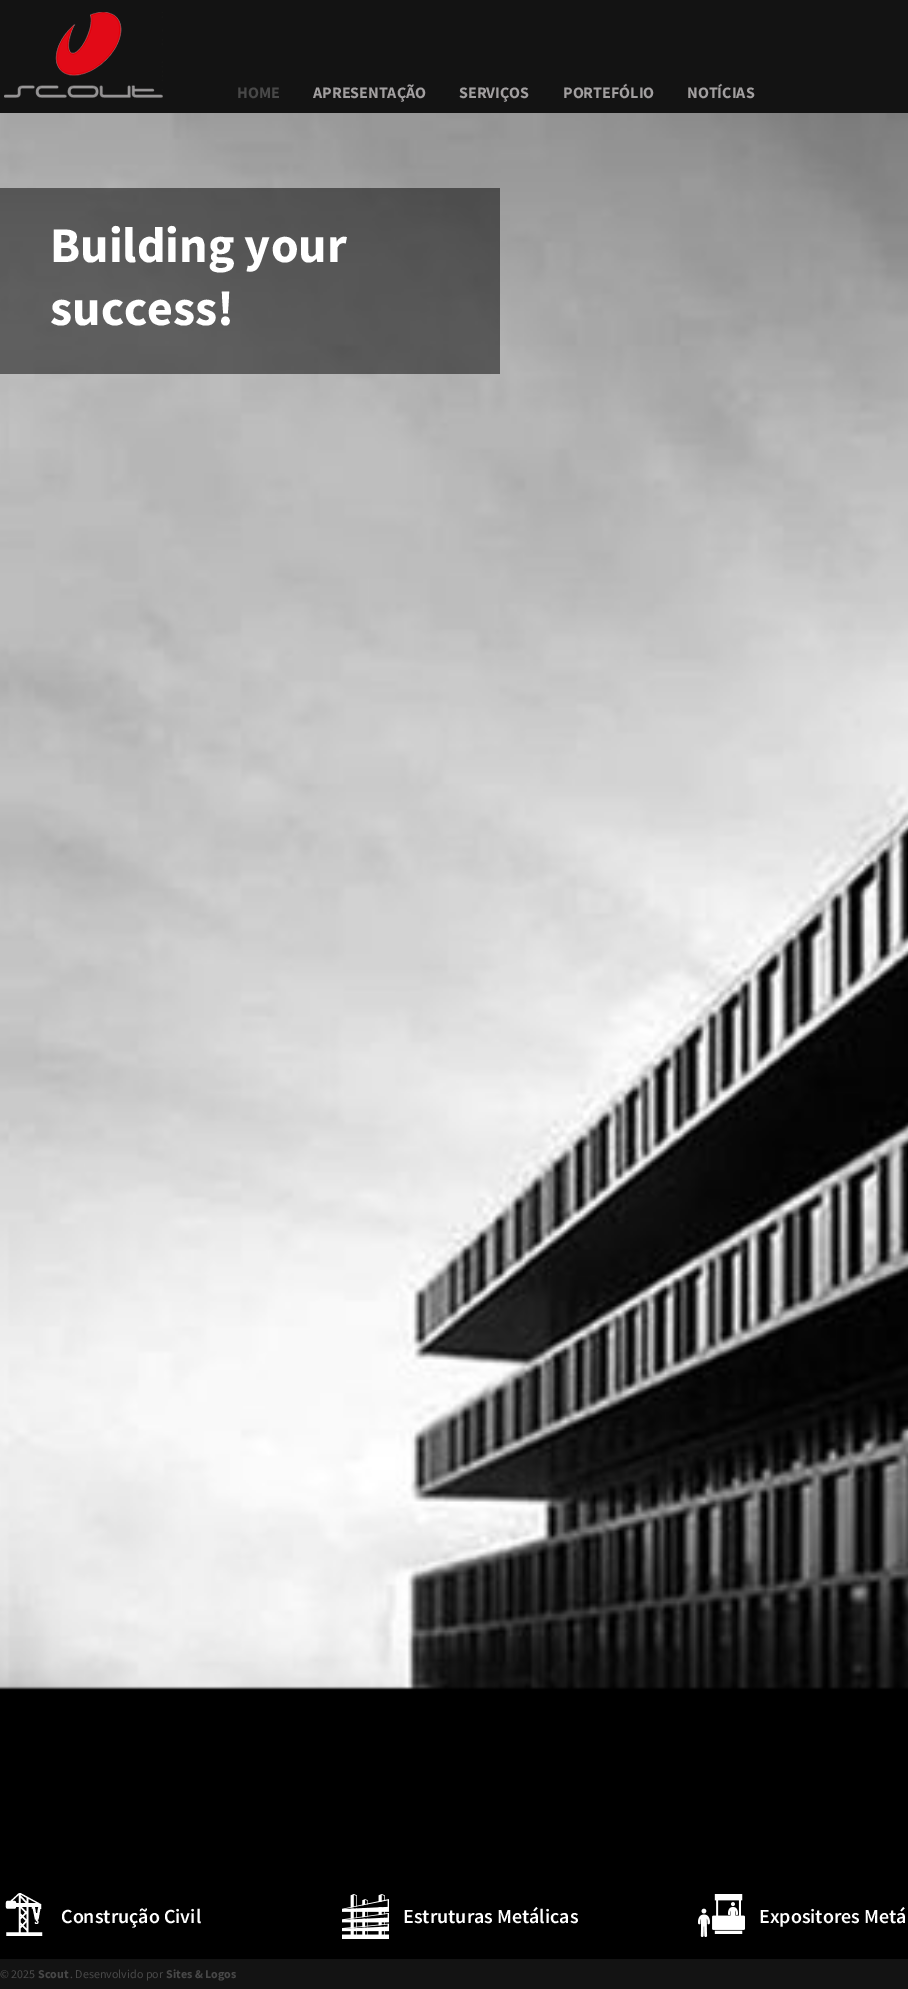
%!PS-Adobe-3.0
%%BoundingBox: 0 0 908 1989
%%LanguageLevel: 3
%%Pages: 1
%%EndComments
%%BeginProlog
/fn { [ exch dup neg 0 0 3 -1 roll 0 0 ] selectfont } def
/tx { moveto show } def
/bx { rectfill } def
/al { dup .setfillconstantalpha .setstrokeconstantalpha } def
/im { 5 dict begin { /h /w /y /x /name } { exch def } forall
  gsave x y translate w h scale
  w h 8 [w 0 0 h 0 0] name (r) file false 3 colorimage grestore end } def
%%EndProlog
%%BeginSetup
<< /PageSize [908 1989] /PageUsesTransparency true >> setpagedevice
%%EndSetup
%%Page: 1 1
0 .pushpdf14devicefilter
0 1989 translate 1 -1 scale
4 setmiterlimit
0.075 setgray
0 0 908 1989 bx
(image0.raw) 4 12 159 86 im
/SourceSansPro-Bold 16 fn
0.282 setgray
(HOME) 237 98 tx
0.635 0.624 0.627 setrgbcolor
(APRESENTAÇÃO) 313 98 tx
(SERVIÇOS) 459 98 tx
(PORTEFÓLIO) 563 98 tx
(NOTÍCIAS) 687 98 tx
(image1.raw) 0 113 908 1846 im
0.5 al
0 setgray
0 188 500 186 bx
/SourceSansPro-Bold 50 fn
1 al
1 setgray
(Building your) 50 262 tx
(success!) 50 325 tx
(image2.raw) 5 1893 38 43 im
/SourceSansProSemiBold-SemiBold 20 fn
(Construção Civil) 61 1923 tx
(image3.raw) 342 1894 47 45 im
(Estruturas Metálicas) 403 1923 tx
(image4.raw) 698 1894 47 43 im
(Expositores Metá) 759 1923 tx
/SourceSansPro-Regular 12 fn
0.282 setgray
(© 2025) 0 1978 tx
/SourceSansPro-Bold 12 fn
(Scout) 38 1978 tx
/SourceSansPro-Regular 12 fn
(. Desenvolvido por) 70 1978 tx
/SourceSansPro-Bold 12 fn
(Sites & Logos) 166 1978 tx
.poppdf14devicefilter showpage
%%EOF
